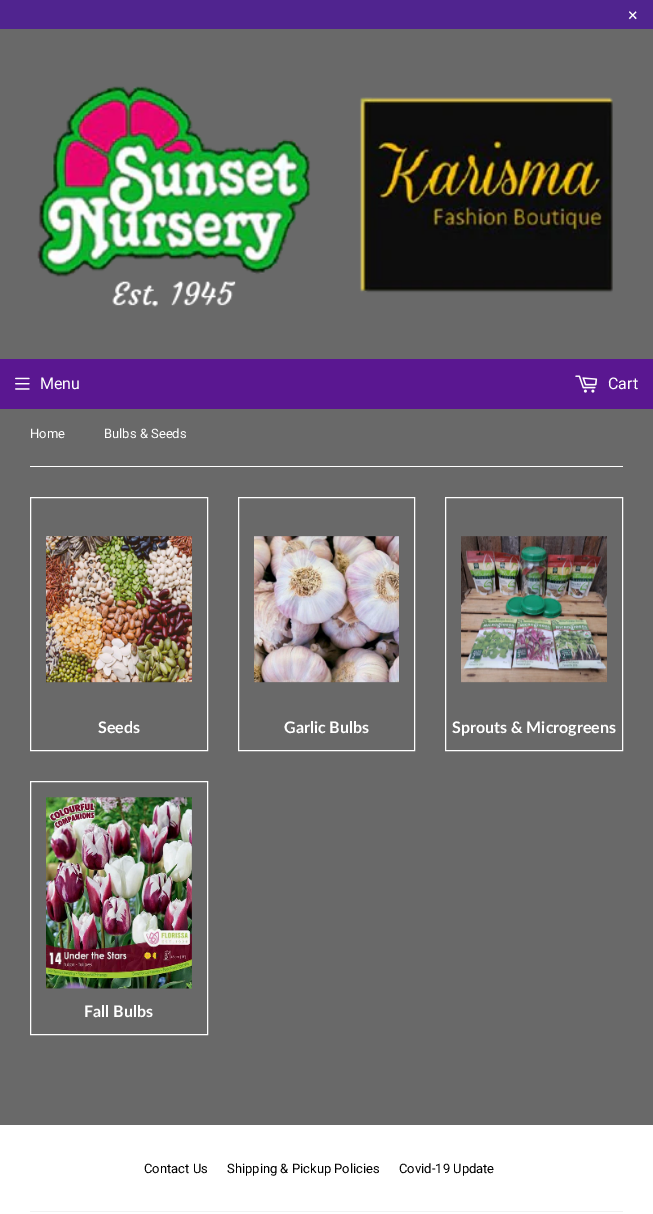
%!PS-Adobe-3.0
%%BoundingBox: 0 0 653 1214
%%LanguageLevel: 3
%%Pages: 1
%%EndComments
%%BeginProlog
/fn { [ exch dup neg 0 0 3 -1 roll 0 0 ] selectfont } def
/tx { moveto show } def
/bx { rectfill } def
/im { 5 dict begin { /h /w /y /x /name } { exch def } forall
  gsave x y translate w h scale
  w h 8 [w 0 0 h 0 0] name (r) file false 3 colorimage grestore end } def
%%EndProlog
%%BeginSetup
<< /PageSize [653 1214] >> setpagedevice
%%EndSetup
%%Page: 1 1
0 1214 translate 1 -1 scale
4 setmiterlimit
0.412 setgray
0 0 653 1214 bx
0.314 0.141 0.561 setrgbcolor
0 0 653 29 bx
/Roboto-Regular 18 fn
1 setgray
(×) 628 21 tx
(image0.raw) 37 86 576 221 im
0.353 0.09 0.569 setrgbcolor
0 359 653 50 bx
(image1.raw) 15 377 15 13 im
/Roboto-Regular 16 fn
1 setgray
(Menu) 40 389 tx
(image2.raw) 575 375 23 18 im
(Cart) 608 389 tx
30 466 593 1 bx
/Roboto-Regular 13 fn
(Home) 30 438 tx
(Bulbs & Seeds) 104 438 tx
30.5 497.5 177 253 rectstroke
(image3.raw) 46 536 146 147 im
/Lato-Bold 16 fn
(Seeds) 98 733 tx
238.5 497.5 176 253 rectstroke
(image4.raw) 254 536 145 147 im
(Garlic Bulbs) 284 733 tx
445.5 497.5 177 253 rectstroke
(image5.raw) 461 536 146 147 im
(Sprouts & Microgreens) 452 733 tx
30.5 781.5 177 253 rectstroke
(image6.raw) 46 797 146 192 im
(Fall Bulbs) 84 1017 tx
0 1125 653 89 bx
/Roboto-Regular 13 fn
0 setgray
(Contact Us) 144 1173 tx
(Shipping & Pickup Policies) 227 1173 tx
(Covid-19 Update) 399 1173 tx
0.949 setgray
30 1211 593 1 bx
showpage
%%EOF
